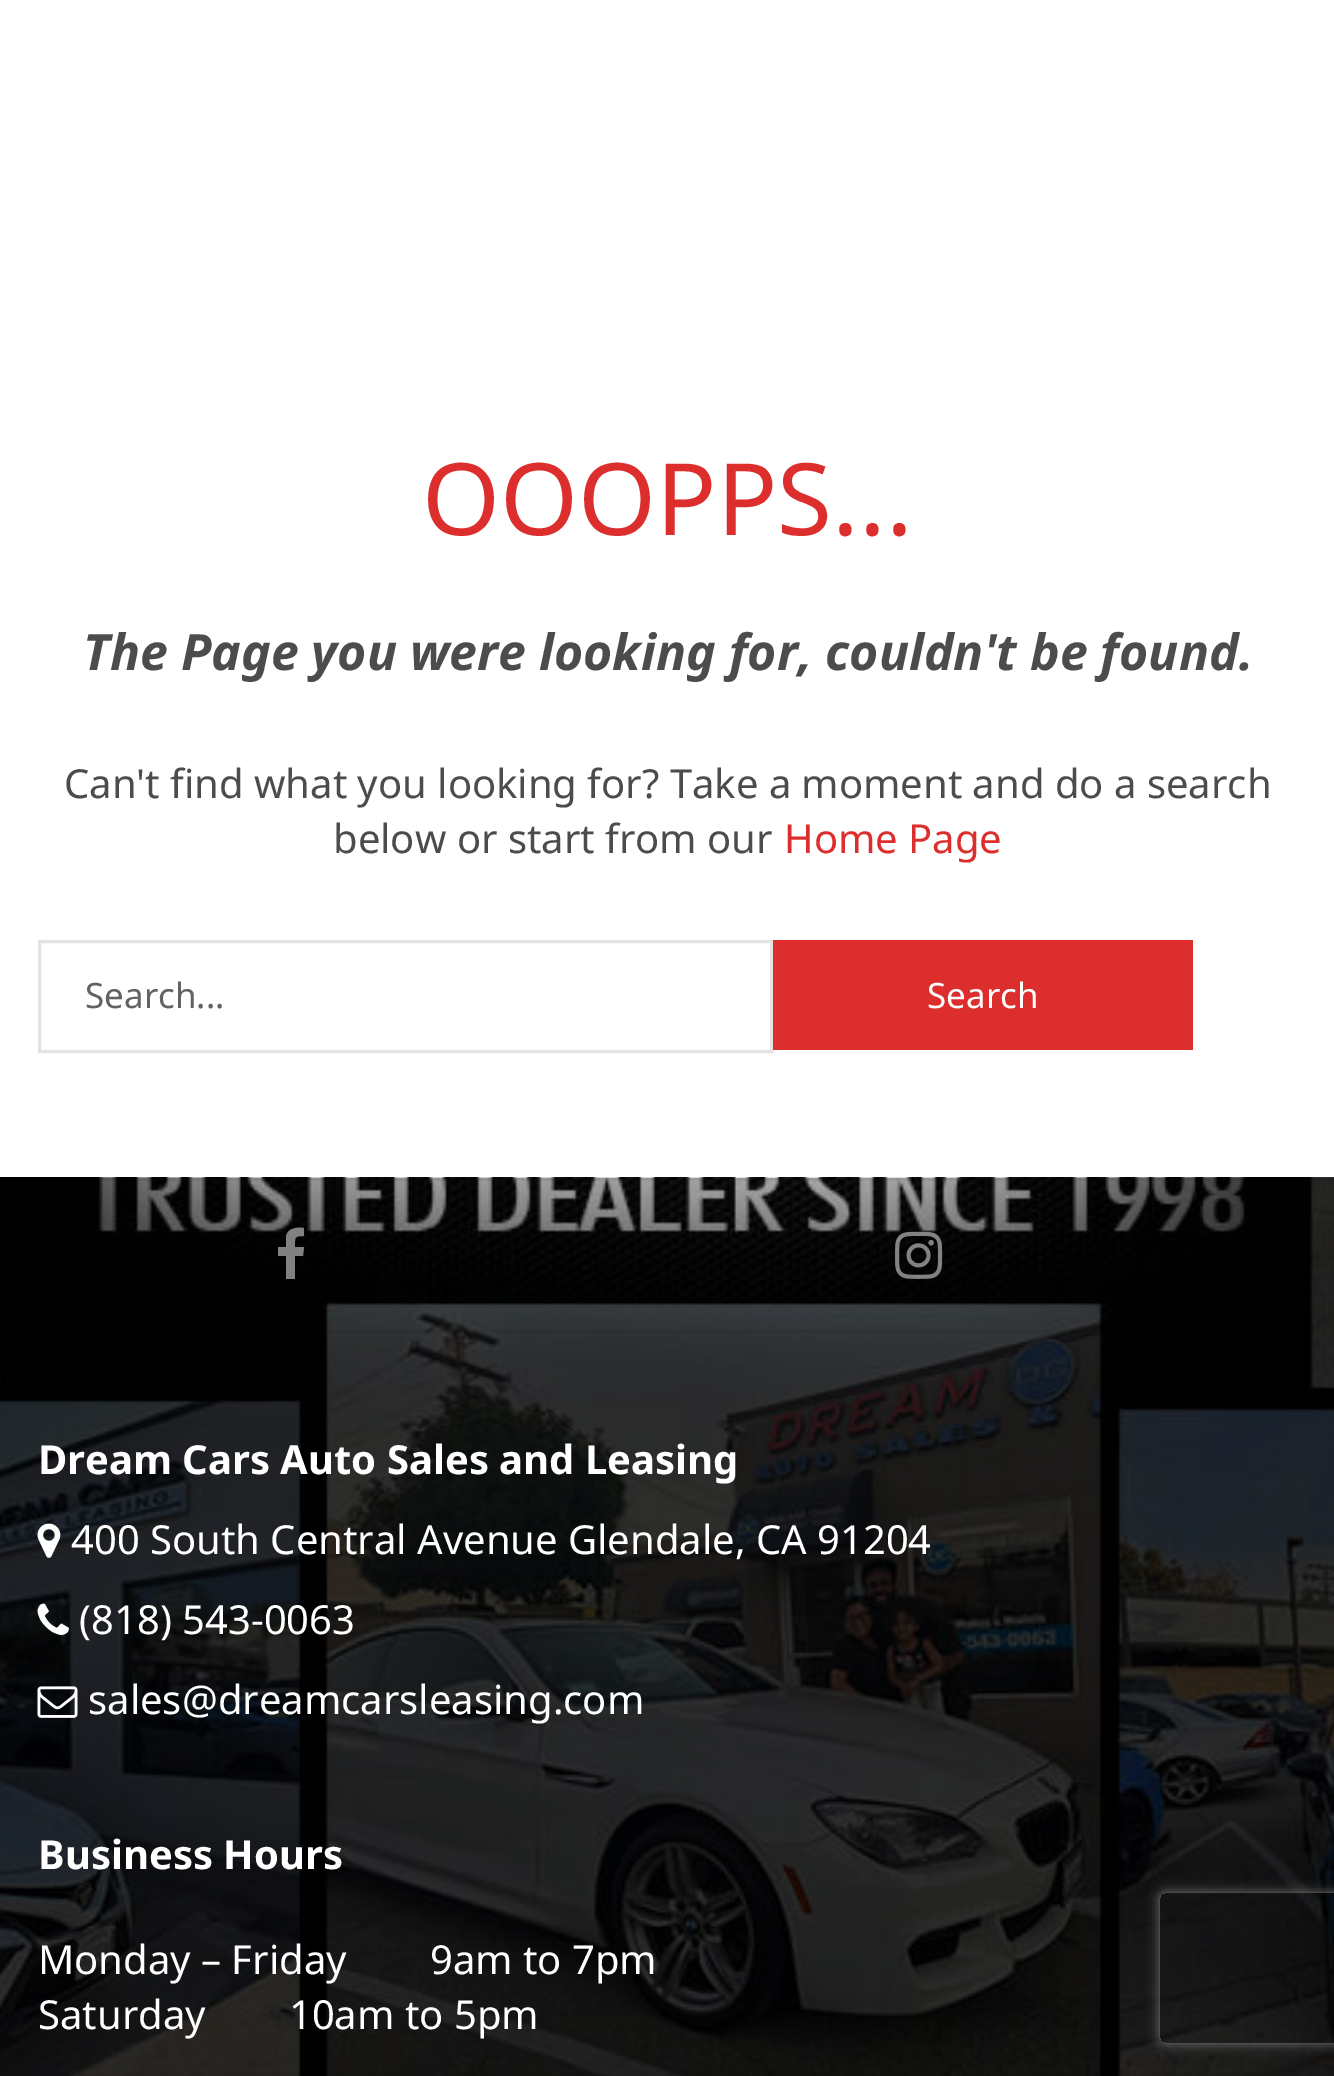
%!PS-Adobe-3.0
%%BoundingBox: 0 0 1334 2076
%%LanguageLevel: 3
%%Pages: 1
%%EndComments
%%BeginProlog
/m { moveto } bind def
/l { lineto } bind def
/c { curveto } bind def
/h { closepath } bind def
/f { fill } bind def
/q { gsave } bind def
/Q { grestore } bind def
/w { setlinewidth } bind def
/fn { [ exch dup neg 0 0 3 -1 roll 0 0 ] selectfont } def
/tx { moveto show } def
/bx { rectfill } def
/al { dup .setfillconstantalpha .setstrokeconstantalpha } def
/rr { 5 dict begin { /r /h /w /y /x } { exch def } forall
  x r add y moveto x w add y 2 copy h add r arct x w add y h add x 1 index r arct
  x y h add x y r arct x y 2 copy exch w add exch r arct closepath end } def
/sh { 12 dict begin { /a /b /q /h /w /y /x } { exch def } forall gsave /was 0 def
  9 -2 -9 { dup b mul 4 div /e exch def 1 sub .425 mul 2.718 exch exp 1 add a .99 .min exch div /now exch def
    1 1 now sub 1 was sub div sub al /was now def
    w h .min e 2 mul add 0 gt { x e sub y e sub w e 2 mul add h e 2 mul add
      q e add b .6 mul add w h .min 2 div e add .min 0 .max rr fill } if } for grestore end } def
/im { 5 dict begin { /h /w /y /x /name } { exch def } forall
  gsave x y translate w h scale
  w h 8 [w 0 0 h 0 0] name (r) file false 3 colorimage grestore end } def
%%EndProlog
%%BeginSetup
<< /PageSize [1334 2076] /PageUsesTransparency true >> setpagedevice
%%EndSetup
%%Page: 1 1
0 .pushpdf14devicefilter
0 2076 translate 1 -1 scale
4 setmiterlimit
1 setgray
0 0 1334 2076 bx
/NotoSans-Regular 100 fn
0.859 0.18 0.176 setrgbcolor
(OOOPPS...) 422 535 tx
/NotoSans-BoldItalic 50 fn
0.298 setgray
(The Page you were looking for, couldn't be found.) 83 670 tx
/NotoSans-Regular 40 fn
(Can't find what you looking for? Take a moment and do a search) 64 798 tx
(below or start from our) 333 853 tx
0.859 0.18 0.176 setrgbcolor
(Home Page) 784 853 tx
0.89 setgray
3 w
39.5 941.5 732 110 rectstroke
/NotoSans-Regular 35 fn
0.384 setgray
(Search...) 85 1008 tx
0.859 0.18 0.176 setrgbcolor
773 940 420 110 bx
1 setgray
(Search) 927 1008 tx
(image0.raw) 0 1177 1334 899 im
0.06 al
0 setgray
101 1178 1141 3 bx
328 1330 738 3 bx
0.5 al
1 setgray
304 1228 m 304 1236 l 294 1236 295 1237 295 1247 c 304 1247 l 303 1256 l 295 1256 l 295 1279 l 286 1279 l 286 1256 l 278 1256 l 278 1247 l 286 1247 l 286 1237 l 287 1228 297 1227 304 1228 c h f
1 al
(image1.raw) 895 1231 48 48 im
/NotoSans-Bold 40 fn
(Dream Cars Auto Sales and Leasing) 38 1474 tx
(image2.raw) 37 1523 24 35 im
/NotoSans-Regular 40 fn
(400 South Central Avenue Glendale, CA 91204) 71 1554 tx
(image3.raw) 37 1603 32 32 im
(\(818\) 543-0063) 79 1634 tx
(image4.raw) 37 1686 41 32 im
(sales@dreamcarsleasing.com) 88 1714 tx
/NotoSans-Bold 40 fn
(Business Hours) 38 1869 tx
/NotoSans-Regular 40 fn
(Monday – Friday        9am to 7pm) 38 1974 tx
(Saturday        10am to 5pm) 38 2029 tx
q
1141 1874 m 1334 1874 l 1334 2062 l 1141 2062 l h 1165 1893 m 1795 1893 l 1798 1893 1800 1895 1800 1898 c 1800 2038 l 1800 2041 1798 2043 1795 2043 c 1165 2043 l 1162 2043 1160 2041 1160 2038 c 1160 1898 l 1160 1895 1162 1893 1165 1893 c h eoclip newpath
0.502 setgray
1160 1893 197 150 5 6 1 sh
Q
.poppdf14devicefilter showpage
%%EOF
